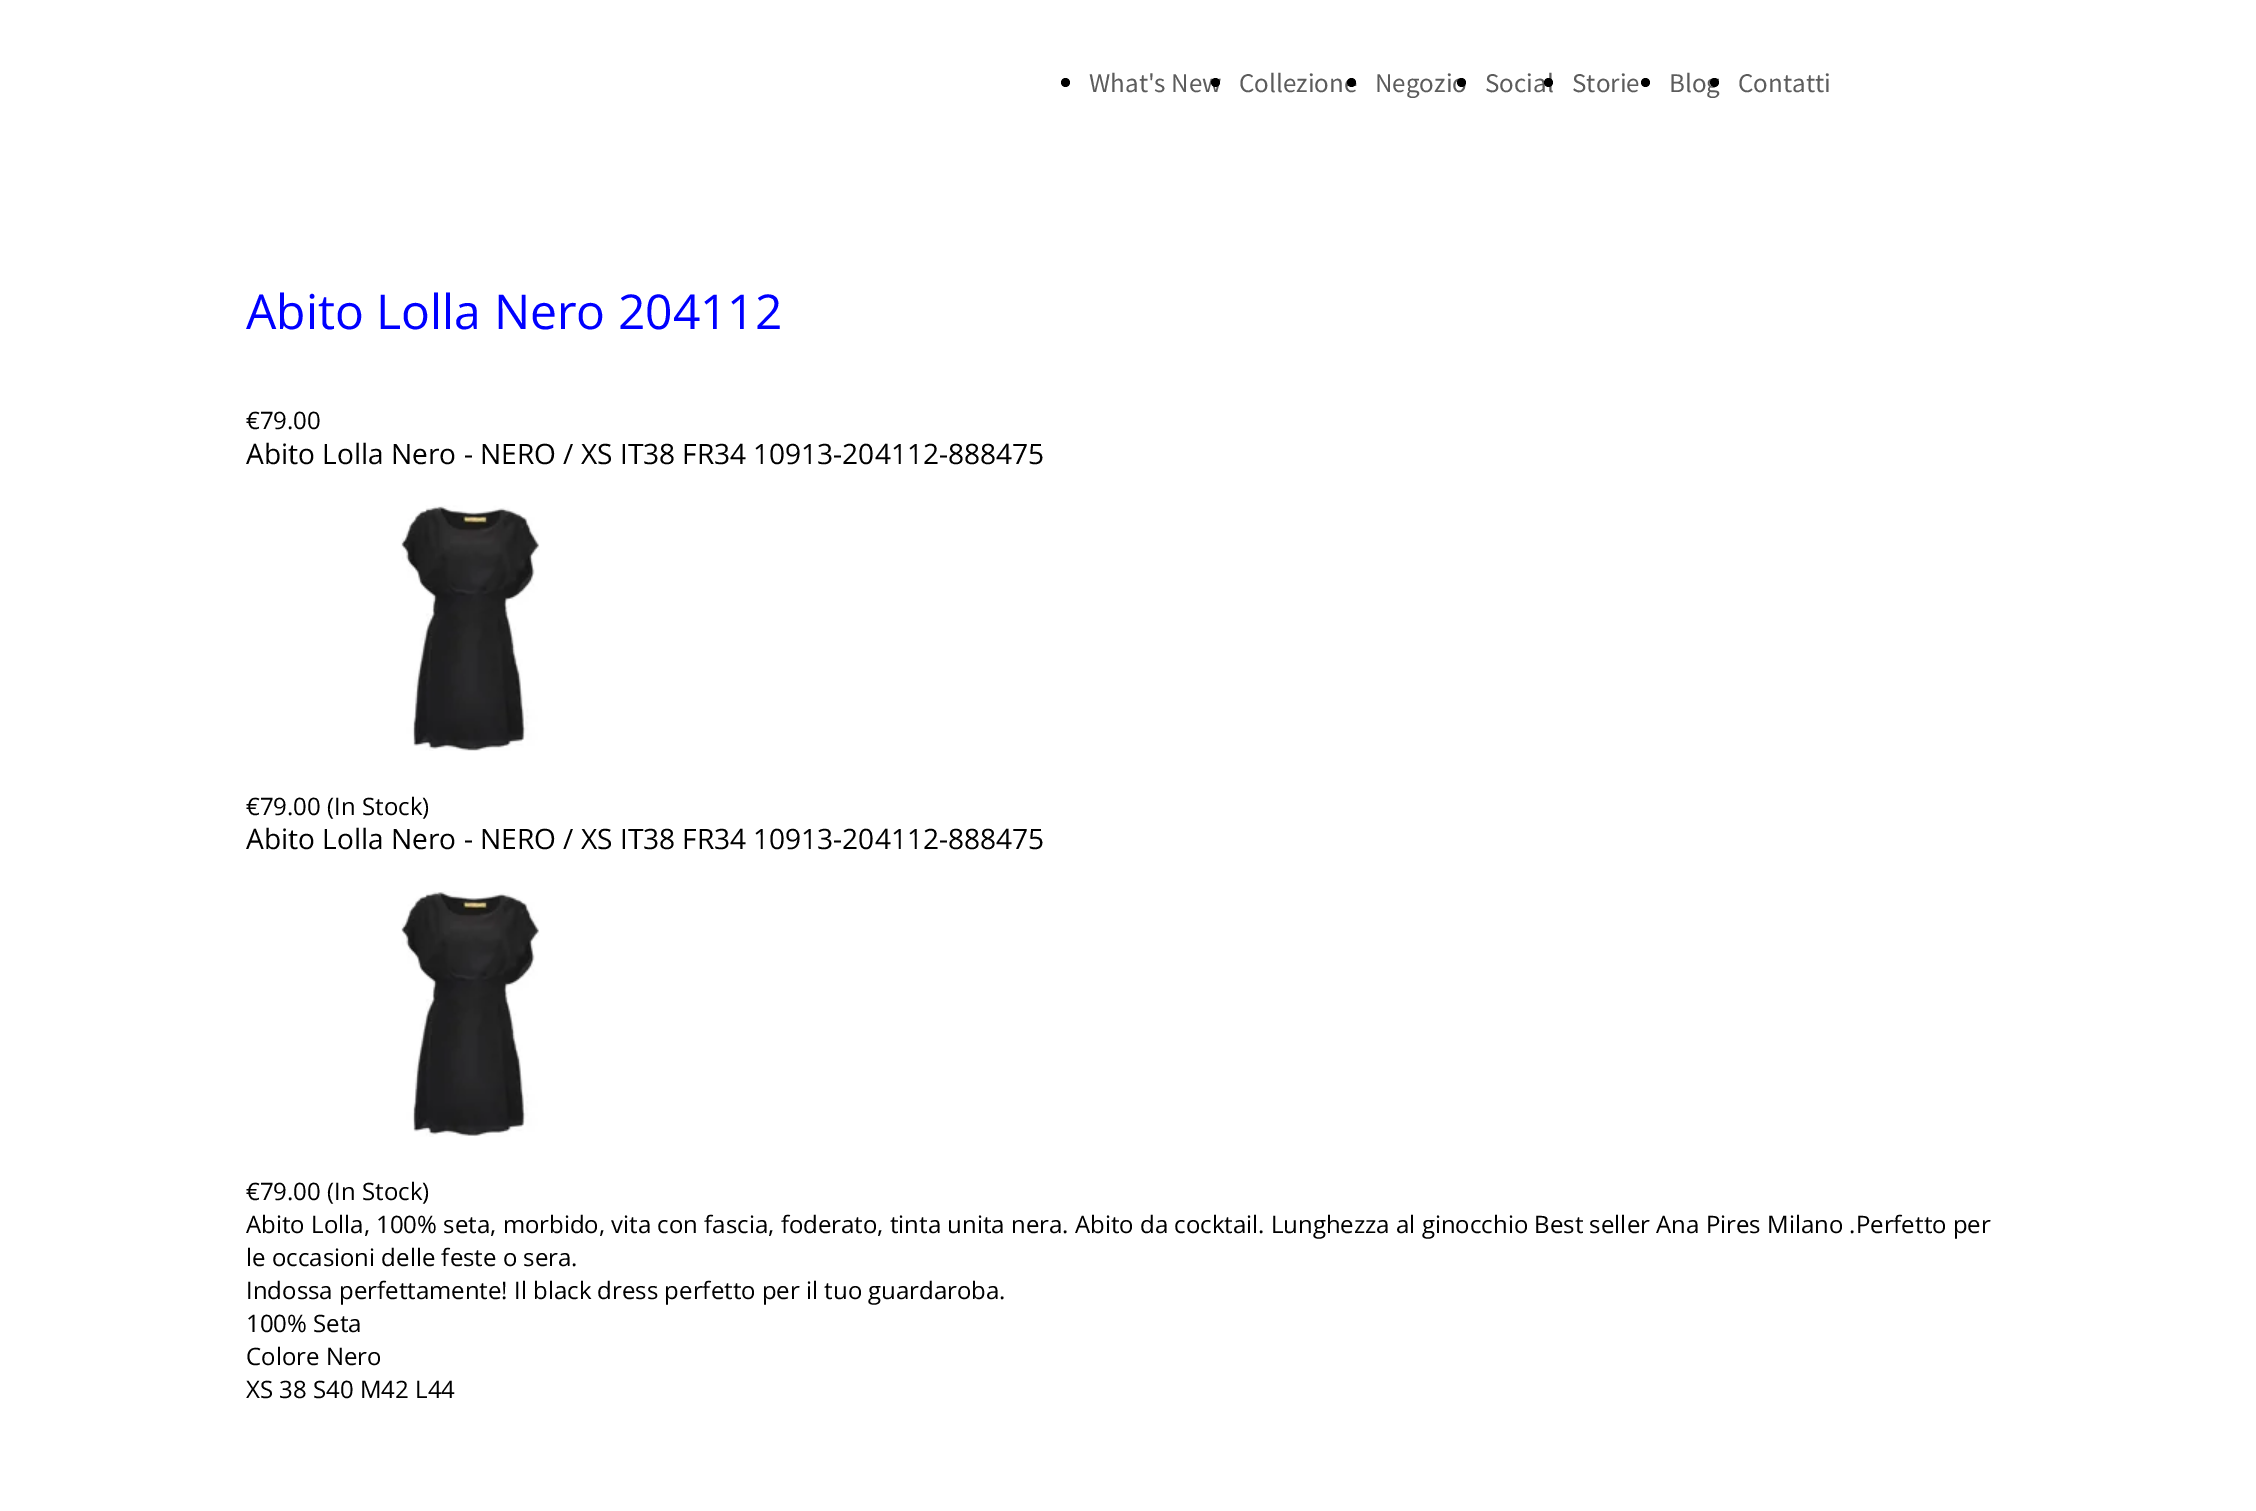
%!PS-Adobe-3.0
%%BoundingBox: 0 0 2256 1511
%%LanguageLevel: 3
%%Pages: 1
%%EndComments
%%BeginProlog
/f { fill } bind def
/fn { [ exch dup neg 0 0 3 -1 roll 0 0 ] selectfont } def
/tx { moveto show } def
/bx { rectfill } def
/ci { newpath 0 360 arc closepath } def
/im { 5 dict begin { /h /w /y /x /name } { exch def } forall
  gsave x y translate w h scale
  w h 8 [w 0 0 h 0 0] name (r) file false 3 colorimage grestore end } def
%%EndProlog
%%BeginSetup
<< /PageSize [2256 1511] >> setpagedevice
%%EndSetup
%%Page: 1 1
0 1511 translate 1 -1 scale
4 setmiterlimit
1 setgray
0 0 2256 1511 bx
0 setgray
1065.5 82.5 4.5 ci f
/SourceSansPro-Regular 27 fn
0.361 setgray
(What's New) 1089 92 tx
0 setgray
1215.5 82.5 4.5 ci f
0.361 setgray
(Collezione) 1239 92 tx
0 setgray
1351.5 82.5 4.5 ci f
0.361 setgray
(Negozio) 1375 92 tx
0 setgray
1461.5 82.5 4.5 ci f
0.361 setgray
(Social) 1485 92 tx
0 setgray
1548.5 82.5 4.5 ci f
0.361 setgray
(Storie) 1572 92 tx
0 setgray
1645.5 82.5 4.5 ci f
0.361 setgray
(Blog) 1669 92 tx
0 setgray
1714.5 82.5 4.5 ci f
0.361 setgray
(Contatti) 1738 92 tx
/OpenSans-Regular 48 fn
0 0 1 setrgbcolor
(Abito Lolla Nero 204112) 246 329 tx
/OpenSans-Regular 24 fn
0 setgray
(€79.00) 246 429 tx
/OpenSans-Regular 28.1 fn
(Abito Lolla Nero - NERO / XS IT38 FR34) 246 464 tx
(10913-204112-888475) 753 464 tx
(image0.raw) 401 505 139 246 im
/OpenSans-Regular 24 fn
(€79.00 \(In Stock\)) 246 815 tx
/OpenSans-Regular 28.1 fn
(Abito Lolla Nero - NERO / XS IT38 FR34) 246 849 tx
(10913-204112-888475) 753 849 tx
(image1.raw) 401 891 139 246 im
/OpenSans-Regular 24 fn
(€79.00 \(In Stock\)) 246 1200 tx
(Abito Lolla, 100% seta, morbido, vita con fascia, foderato, tinta unita nera. Abito da cocktail. Lunghezza al ginocchio Best seller Ana Pires Milano .Perfetto per) 246 1233 tx
(le occasioni delle feste o sera.) 246 1266 tx
(Indossa perfettamente! Il black dress perfetto per il tuo guardaroba.) 246 1299 tx
(100% Seta) 246 1332 tx
(Colore Nero) 246 1365 tx
(XS 38 S40 M42 L44) 246 1398 tx
showpage
%%EOF
